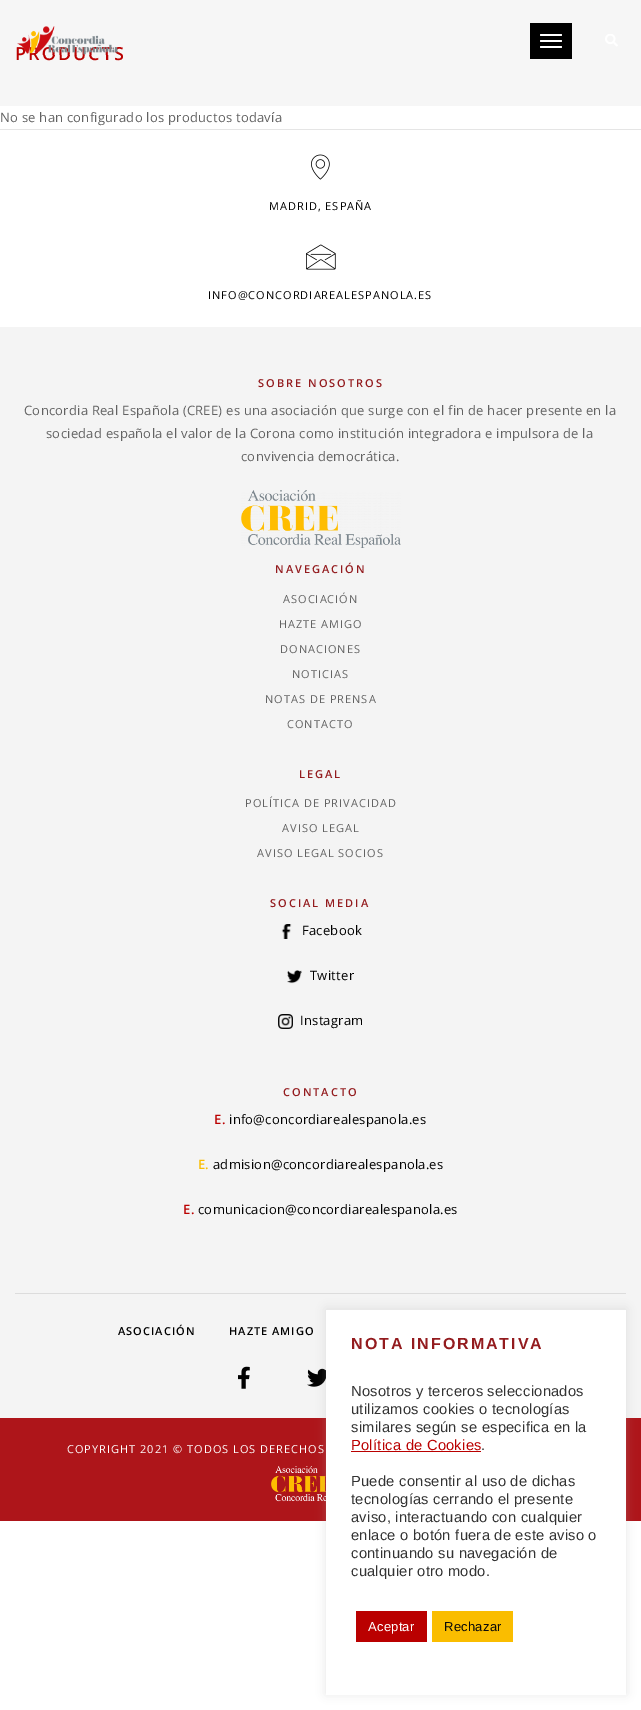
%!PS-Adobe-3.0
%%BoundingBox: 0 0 641 1710
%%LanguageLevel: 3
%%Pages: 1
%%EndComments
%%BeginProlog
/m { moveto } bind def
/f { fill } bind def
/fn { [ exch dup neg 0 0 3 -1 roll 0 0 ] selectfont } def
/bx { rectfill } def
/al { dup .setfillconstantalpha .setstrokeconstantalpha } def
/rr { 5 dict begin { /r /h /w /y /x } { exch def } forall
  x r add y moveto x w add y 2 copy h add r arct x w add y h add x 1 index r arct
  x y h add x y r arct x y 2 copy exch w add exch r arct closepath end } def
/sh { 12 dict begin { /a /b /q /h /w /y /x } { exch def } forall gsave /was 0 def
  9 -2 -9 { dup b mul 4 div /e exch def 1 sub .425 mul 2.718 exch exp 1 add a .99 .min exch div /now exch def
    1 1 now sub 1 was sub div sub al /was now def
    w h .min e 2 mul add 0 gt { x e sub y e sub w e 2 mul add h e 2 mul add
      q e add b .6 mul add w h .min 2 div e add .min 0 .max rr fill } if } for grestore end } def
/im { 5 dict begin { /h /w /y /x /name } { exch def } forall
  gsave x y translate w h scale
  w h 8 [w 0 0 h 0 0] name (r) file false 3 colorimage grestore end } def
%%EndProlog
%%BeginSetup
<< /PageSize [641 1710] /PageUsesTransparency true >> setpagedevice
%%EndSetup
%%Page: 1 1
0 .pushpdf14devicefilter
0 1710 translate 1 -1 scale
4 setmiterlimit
1 setgray
0 0 641 1710 bx
0.965 setgray
0 0 641 106 bx
/OpenSans-SemiBold 18 fn
0.729 0 0 setrgbcolor
15 60 m 2 0 (PRODUCTS) ashow
(image0.raw) 17 26 102 29 im
0 setgray
530 23 42 36 bx
1 setgray
540 34 22 2 1 rr f
540 40 22 2 1 rr f
540 46 22 2 1 rr f
(image1.raw) 605 34 13 13 im
/OpenSans-Regular 13 fn
0.384 setgray
0 122 m 0.25 0 (No se han configurado los productos todavía) ashow
0.957 setgray
0 327 641 1091 bx
0.898 setgray
0 129 641 1 bx
(image2.raw) 311 154 19 26 im
/OpenSans-Regular 11 fn
0 setgray
269 210 m 1 0 (MADRID, ESPAÑA) ashow
(image3.raw) 306 244 30 26 im
208 299 m 1 0 (INFO@CONCORDIAREALESPANOLA.ES) ashow
/OpenSans-SemiBold 11 fn
0.576 0.106 0.118 setrgbcolor
258 387 m 2 0 (SOBRE NOSOTROS) ashow
/OpenSans-Regular 13 fn
0.384 setgray
24 415 m 0.25 0 (Concordia Real Española \(CREE\) es una asociación que surge con el fin de hacer presente en la) ashow
46 438 m 0.25 0 (sociedad española el valor de la Corona como institución integradora e impulsora de la) ashow
241 461 m 0.25 0 (convivencia democrática.) ashow
(image4.raw) 241 490 160 58 im
/OpenSans-SemiBold 11 fn
0.576 0.106 0.118 setrgbcolor
275 573 m 2 0 (NAVEGACIÓN) ashow
/OpenSans-Regular 11 fn
0.384 setgray
283 603 m 1 0 (ASOCIACIÓN) ashow
279 628 m 1 0 (HAZTE AMIGO) ashow
280 653 m 1 0 (DONACIONES) ashow
292 678 m 1 0 (NOTICIAS) ashow
265 703 m 1 0 (NOTAS DE PRENSA) ashow
287 728 m 1 0 (CONTACTO) ashow
/OpenSans-SemiBold 11 fn
0.576 0.106 0.118 setrgbcolor
299 778 m 2 0 (LEGAL) ashow
/OpenSans-Regular 11 fn
0.384 setgray
245 807 m 1 0 (POLÍTICA DE PRIVACIDAD) ashow
282 832 m 1 0 (AVISO LEGAL) ashow
257 857 m 1 0 (AVISO LEGAL SOCIOS) ashow
/OpenSans-SemiBold 11 fn
0.576 0.106 0.118 setrgbcolor
270 907 m 2 0 (SOCIAL MEDIA) ashow
(image5.raw) 281 924 11 15 im
/OpenSans-Regular 13 fn
0 setgray
302 935 m 0.25 0 (Facebook) ashow
(image6.raw) 287 970 15 14 im
310 980 m 0.25 0 (Twitter) ashow
(image7.raw) 278 1014 15 15 im
300 1025 m 0.25 0 (Instagram) ashow
/OpenSans-SemiBold 11 fn
0.576 0.106 0.118 setrgbcolor
283 1096 m 2 0 (CONTACTO) ashow
/OpenSans-SemiBold 13 fn
0.729 0 0 setrgbcolor
214 1124 m 0.25 0 (E.) ashow
/OpenSans-Regular 13 fn
0 setgray
229 1124 m 0.25 0 (info@concordiarealespanola.es) ashow
/OpenSans-SemiBold 13 fn
0.98 0.741 0 setrgbcolor
198 1169 m 0.25 0 (E) ashow
205 1169 m 0.25 0 (.) ashow
/OpenSans-Regular 13 fn
0 setgray
213 1169 m 0.25 0 (admision@concordiarealespanola.es) ashow
/OpenSans-SemiBold 13 fn
0.729 0 0 setrgbcolor
183 1214 m 0.25 0 (E.) ashow
/OpenSans-Regular 13 fn
0 setgray
198 1214 m 0.25 0 (comunicacion@concordiarealespanola.es) ashow
0.863 setgray
15 1293 611 1 bx
/OpenSans-SemiBold 11 fn
0 setgray
118 1335 m 1 0 (ASOCIACIÓN) ashow
229 1335 m 1 0 (HAZTE AMIGO) ashow
(image8.raw) 238 1366 12 23 im
(image9.raw) 307 1368 19 19 im
0.682 0.082 0.102 setrgbcolor
0 1418 641 103 bx
/OpenSans-Regular 11 fn
1 setgray
67 1453 m 1 0 (COPYRIGHT 2021 © TODOS LOS DERECHOS) ashow
(image10.raw) 271 1466 55 36 im
0.675 0.671 0.671 setrgbcolor
326 1309 300 385 0 5 0.3 sh
1 setgray
326 1310 300 385 bx
/LiberationSans-Bold 16 fn
0.576 0.106 0.118 setrgbcolor
351 1349 m 2 0 (NOTA INFORMATIVA) ashow
/LiberationSans-Regular 14.7 fn
0.2 setgray
351 1396 m 0.25 0 (Nosotros y terceros seleccionados) ashow
351 1414 m 0.25 0 (utilizamos cookies o tecnologías) ashow
351 1432 m 0.25 0 (similares según se especifica en la) ashow
0.729 0 0 setrgbcolor
351 1450 m 0.25 0 (Política de Cookies) ashow
351 1451 130 1 bx
0.2 setgray
481 1450 m 0.25 0 (.) ashow
351 1486 m 0.25 0 (Puede consentir al uso de dichas) ashow
351 1504 m 0.25 0 (tecnologías cerrando el presente) ashow
351 1522 m 0.25 0 (aviso, interactuando con cualquier) ashow
351 1540 m 0.25 0 (enlace o botón fuera de este aviso o) ashow
351 1558 m 0.25 0 (continuando su navegación de) ashow
351 1576 m 0.25 0 (cualquier otro modo.) ashow
0.729 0 0 setrgbcolor
356 1611 71 31 bx
/LiberationSans-Regular 13 fn
1 setgray
368 1631 m 0.25 0 (Aceptar) ashow
0.98 0.741 0 setrgbcolor
432 1611 81 31 bx
0.039 setgray
444 1631 m 0.25 0 (Rechazar) ashow
.poppdf14devicefilter showpage
%%EOF
